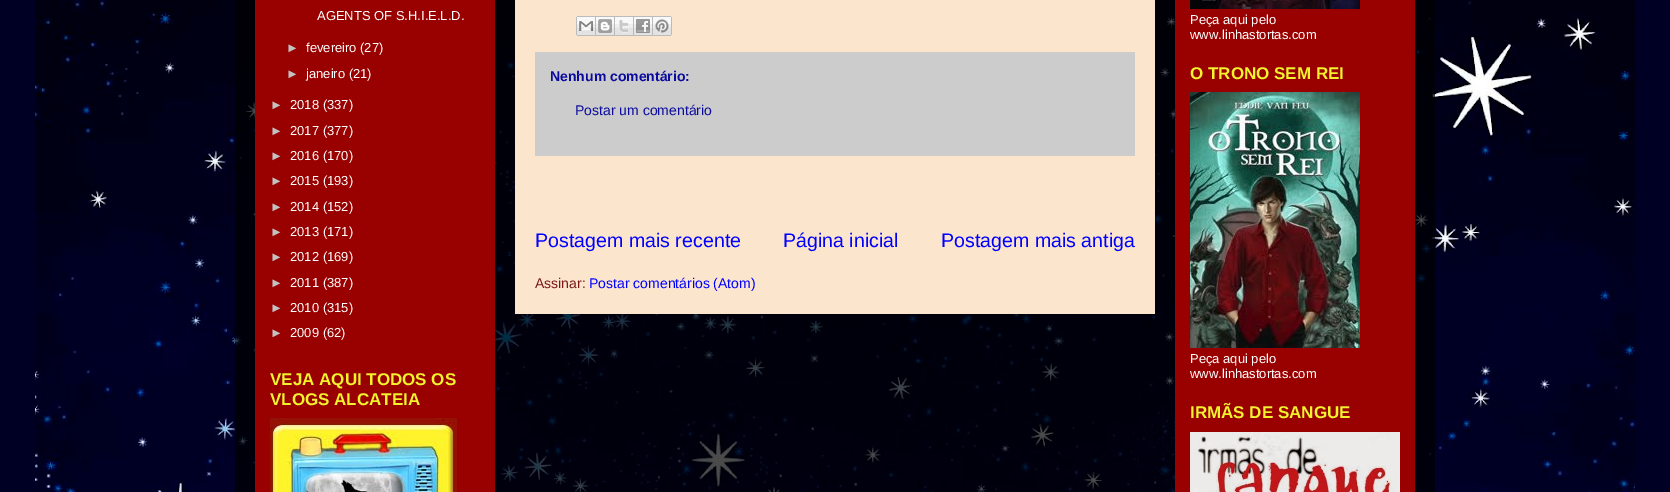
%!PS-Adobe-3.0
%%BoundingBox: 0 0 1670 492
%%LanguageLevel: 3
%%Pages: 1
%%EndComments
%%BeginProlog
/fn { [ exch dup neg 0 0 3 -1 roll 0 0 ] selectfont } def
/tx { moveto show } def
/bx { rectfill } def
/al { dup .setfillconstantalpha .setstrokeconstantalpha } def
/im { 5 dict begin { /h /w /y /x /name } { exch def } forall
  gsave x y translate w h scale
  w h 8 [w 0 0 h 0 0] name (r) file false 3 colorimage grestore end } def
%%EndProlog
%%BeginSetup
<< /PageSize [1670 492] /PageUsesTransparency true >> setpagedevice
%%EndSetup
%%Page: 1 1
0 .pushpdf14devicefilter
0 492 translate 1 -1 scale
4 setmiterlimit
0 0 0.141 setrgbcolor
0 0 1670 492 bx
(image0.raw) 35 0 1600 492 im
0.7 al
0 setgray
235 0 1200 492 bx
1 al
0.6 0 0 setrgbcolor
255 0 240 492 bx
1175 0 240 492 bx
/LiberationSans-Regular 13 fn
1 setgray
(AGENTS OF S.H.I.E.L.D.) 317 20 tx
0.761 setgray
(►) 286 52 tx
1 setgray
(fevereiro \(27\)) 306 52 tx
0.761 setgray
(►) 286 78 tx
1 setgray
(janeiro \(21\)) 306 78 tx
0.761 setgray
(►) 270 109 tx
1 setgray
(2018 \(337\)) 290 109 tx
0.761 setgray
(►) 270 135 tx
1 setgray
(2017 \(377\)) 290 135 tx
0.761 setgray
(►) 270 160 tx
1 setgray
(2016 \(170\)) 290 160 tx
0.761 setgray
(►) 270 185 tx
1 setgray
(2015 \(193\)) 290 185 tx
0.761 setgray
(►) 270 211 tx
1 setgray
(2014 \(152\)) 290 211 tx
0.761 setgray
(►) 270 236 tx
1 setgray
(2013 \(171\)) 290 236 tx
0.761 setgray
(►) 270 261 tx
1 setgray
(2012 \(169\)) 290 261 tx
0.761 setgray
(►) 270 287 tx
1 setgray
(2011 \(387\)) 290 287 tx
0.761 setgray
(►) 270 312 tx
1 setgray
(2010 \(315\)) 290 312 tx
0.761 setgray
(►) 270 337 tx
1 setgray
(2009 \(62\)) 290 337 tx
/LiberationSans-Bold 17 fn
0.949 0.949 0.184 setrgbcolor
(VEJA AQUI TODOS OS) 270 385 tx
(VLOGS ALCATEIA) 270 405 tx
(image1.raw) 270 418 187 74 im
0.988 0.898 0.804 setrgbcolor
515 0 640 314 bx
(image2.raw) 576 16 20 20 im
(image3.raw) 596 16 19 20 im
(image4.raw) 615 16 19 20 im
(image5.raw) 634 16 19 20 im
(image6.raw) 653 16 19 20 im
0.8 setgray
535 52 600 104 bx
/LiberationSans-Bold 14 fn
0.043 0.043 0.616 setrgbcolor
(Nenhum comentário:) 550 81 tx
/LiberationSans-Regular 14 fn
(Postar um comentário) 575 115 tx
/LiberationSans-Regular 19.6 fn
0 0 1 setrgbcolor
(Postagem mais recente) 535 247 tx
(Página inicial) 783 247 tx
(Postagem mais antiga) 941 247 tx
/LiberationSans-Regular 14 fn
0.475 0.09 0.09 setrgbcolor
(Assinar:) 535 288 tx
0 0 1 setrgbcolor
(Postar comentários \(Atom\)) 589 288 tx
(image7.raw) 1190 0 170 9 im
/LiberationSans-Regular 13 fn
1 setgray
(Peça aqui pelo) 1190 24 tx
(www.linhastortas.com) 1190 39 tx
/LiberationSans-Bold 17 fn
0.949 0.949 0.184 setrgbcolor
(O TRONO SEM REI) 1190 79 tx
(image8.raw) 1190 92 170 256 im
/LiberationSans-Regular 13 fn
1 setgray
(Peça aqui pelo) 1190 363 tx
(www.linhastortas.com) 1190 378 tx
/LiberationSans-Bold 17 fn
0.949 0.949 0.184 setrgbcolor
(IRMÃS DE SANGUE) 1190 418 tx
(image9.raw) 1190 432 210 60 im
.poppdf14devicefilter showpage
%%EOF
